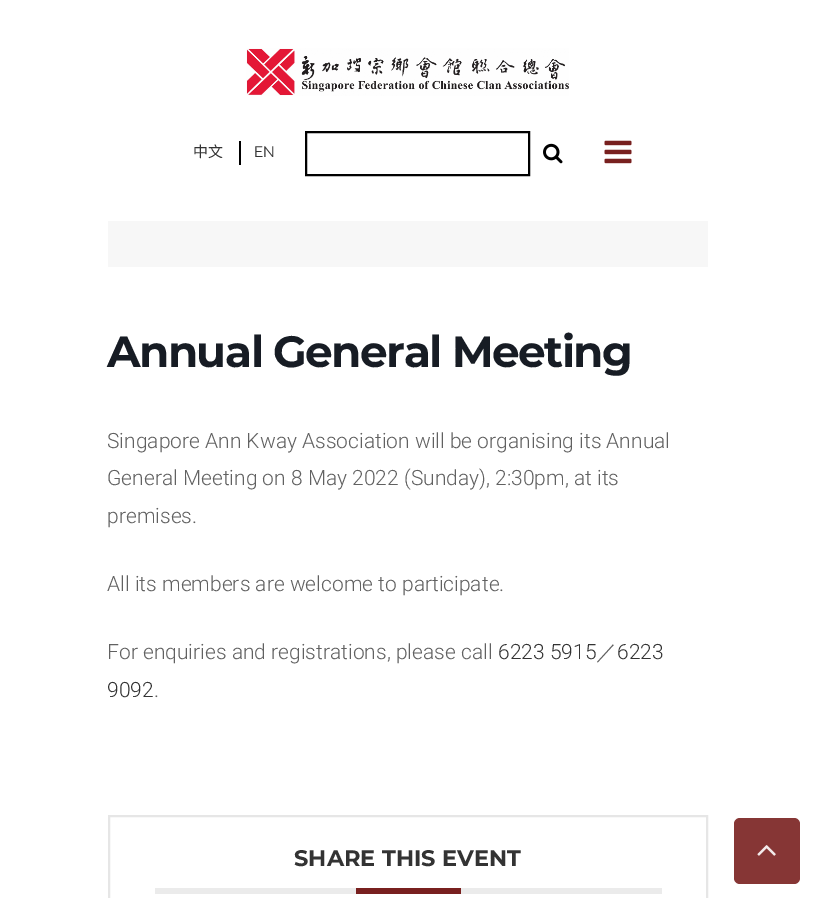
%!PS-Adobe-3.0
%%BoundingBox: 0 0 814 898
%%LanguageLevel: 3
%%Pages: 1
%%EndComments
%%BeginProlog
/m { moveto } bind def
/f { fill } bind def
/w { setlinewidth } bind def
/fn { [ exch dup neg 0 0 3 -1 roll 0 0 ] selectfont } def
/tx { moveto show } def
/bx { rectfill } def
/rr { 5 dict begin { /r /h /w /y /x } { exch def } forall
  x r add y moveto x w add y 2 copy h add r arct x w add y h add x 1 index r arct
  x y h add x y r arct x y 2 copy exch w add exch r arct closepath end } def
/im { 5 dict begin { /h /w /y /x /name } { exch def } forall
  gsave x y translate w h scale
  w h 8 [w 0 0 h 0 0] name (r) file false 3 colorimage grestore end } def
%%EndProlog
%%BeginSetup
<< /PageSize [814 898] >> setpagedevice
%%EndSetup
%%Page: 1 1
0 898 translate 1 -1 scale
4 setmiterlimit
1 setgray
0 0 814 898 bx
(image0.raw) 246 48 323 48 im
0 setgray
239 141 2 24 bx
/NotoSansCJKSC-Regular 15 fn
0.2 setgray
(中文) 193 157 tx
/Raleway-Regular 15 fn
(EN) 254 157 tx
0 setgray
2 w
306 132 223 43 rectstroke
(image1.raw) 543 143 20 21 im
(image2.raw) 604 140 28 24 im
0.969 setgray
108 221 600 46 bx
/Montserrat-Bold 43.75 fn
0.09 0.11 0.141 setrgbcolor
107 367 m -1.5 0 (Annual General Meeting) ashow
/Roboto-Light 21 fn
0.38 setgray
(Singapore Ann Kway Association will be organising its Annual) 107 448 tx
(General Meeting on 8 May 2022 \(Sunday\), 2:30pm, at its) 107 485 tx
(premises.) 107 523 tx
(All its members are welcome to participate.) 107 591 tx
(For enquiries and registrations, please call) 107 659 tx
0.2 setgray
(6223 5915) 498 659 tx
/WenQuanYiZenHei-Medium 21 fn
0.38 setgray
(／) 596 659 tx
/Roboto-Light 21 fn
0.2 setgray
(6223) 617 659 tx
(9092) 107 697 tx
0.38 setgray
(.) 154 697 tx
0.902 setgray
109 816 598 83 rectstroke
0.922 setgray
155 888 507 6 bx
/Montserrat-Bold 22.5 fn
0.2 setgray
(SHARE THIS EVENT) 294 866 tx
0.471 0.125 0.122 setrgbcolor
356 888 105 6 bx
0.525 0.212 0.208 setrgbcolor
734 818 66 66 6 rr f
(image3.raw) 757 845 19 11 im
showpage
%%EOF
